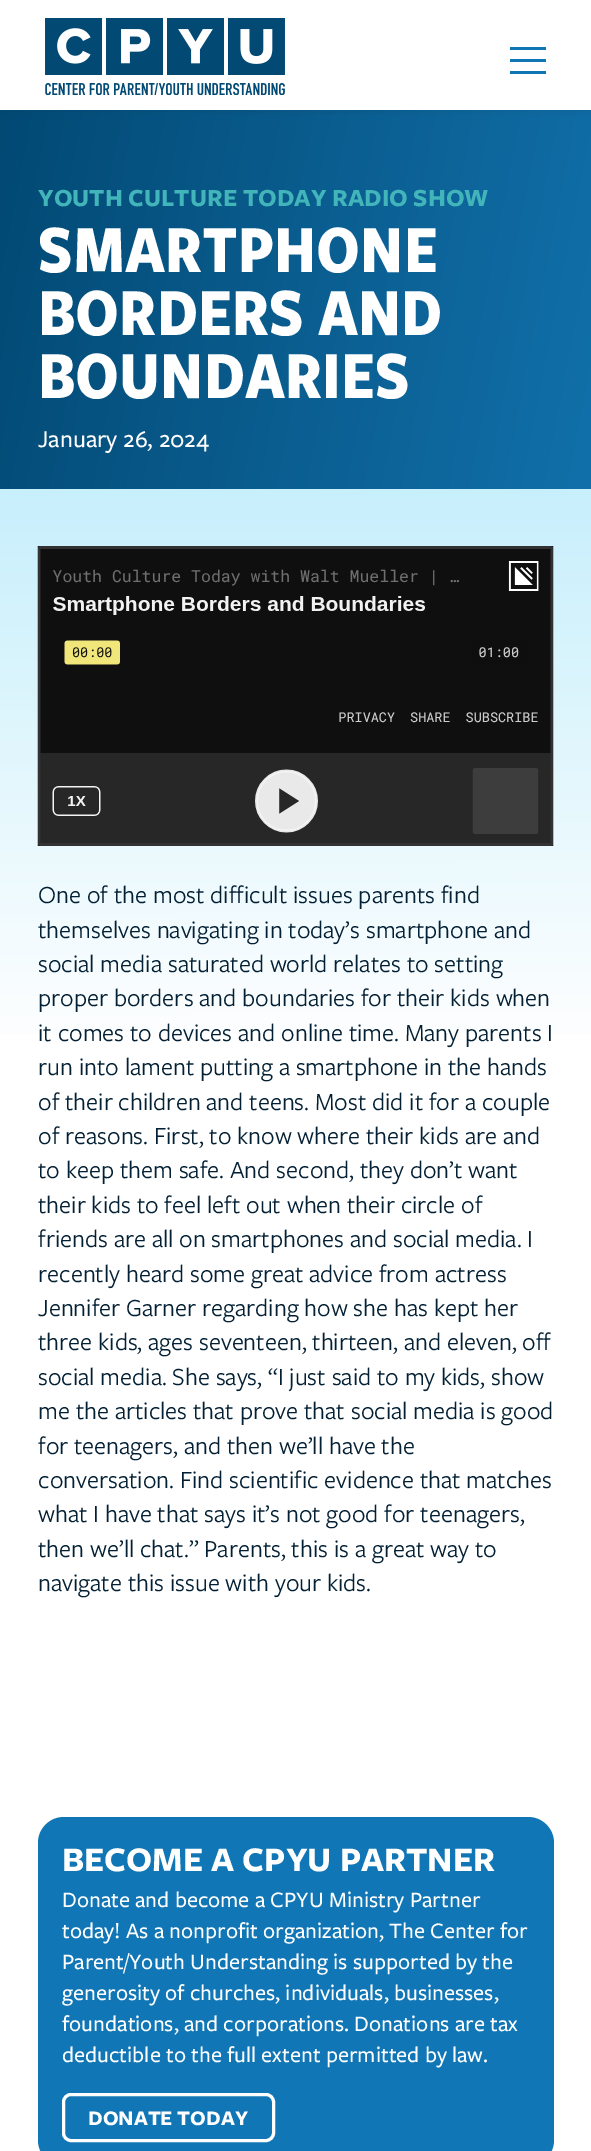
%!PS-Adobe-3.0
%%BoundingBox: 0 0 591 2151
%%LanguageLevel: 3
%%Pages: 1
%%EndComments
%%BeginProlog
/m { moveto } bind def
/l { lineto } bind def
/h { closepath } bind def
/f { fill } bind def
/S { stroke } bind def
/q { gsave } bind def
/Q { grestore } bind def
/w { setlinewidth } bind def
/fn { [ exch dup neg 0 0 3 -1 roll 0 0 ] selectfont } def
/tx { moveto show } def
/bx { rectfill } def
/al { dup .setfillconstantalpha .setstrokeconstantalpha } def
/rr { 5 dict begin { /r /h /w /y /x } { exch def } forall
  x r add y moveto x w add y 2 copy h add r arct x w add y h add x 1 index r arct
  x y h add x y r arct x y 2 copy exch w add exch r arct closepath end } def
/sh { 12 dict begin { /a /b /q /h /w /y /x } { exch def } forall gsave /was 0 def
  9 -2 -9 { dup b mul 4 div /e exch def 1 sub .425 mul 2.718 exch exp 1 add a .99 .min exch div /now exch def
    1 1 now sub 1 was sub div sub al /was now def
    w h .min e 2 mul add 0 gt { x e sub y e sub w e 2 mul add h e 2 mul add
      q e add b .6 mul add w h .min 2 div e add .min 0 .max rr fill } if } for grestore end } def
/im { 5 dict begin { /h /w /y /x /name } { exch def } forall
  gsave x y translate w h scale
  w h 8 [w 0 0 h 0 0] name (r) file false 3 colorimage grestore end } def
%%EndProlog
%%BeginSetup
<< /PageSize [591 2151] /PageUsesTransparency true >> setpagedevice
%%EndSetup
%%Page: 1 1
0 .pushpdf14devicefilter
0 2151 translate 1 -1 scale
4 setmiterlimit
1 setgray
0 0 591 2151 bx
q 0 110 m 591 110 l 591 489 l 0 489 l h clip newpath
<< /ShadingType 2 /ColorSpace /DeviceRGB /Coords [-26 231 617 356] /Extend [true true] /Function << /FunctionType 2 /Domain [0 1] /C0 [0.008 0.286 0.455] /C1 [0.067 0.439 0.667] /N 1 >> >> shfill Q
0.012 0.165 0.271 setrgbcolor
0 3 591 110 0 3 0.08 sh
1 setgray
0 0 591 110 bx
(image0.raw) 45 18 240 77 im
0.063 0.463 0.71 setrgbcolor
510 47 36 3 bx
510 59 36 3 bx
510 71 36 3 bx
/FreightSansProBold-Bold 25.5 fn
0.259 0.71 0.729 setrgbcolor
(YOUTH CULTURE TODAY RADIO SHOW) 38 206 tx
/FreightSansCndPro-Bold 70 fn
1 setgray
(SMARTPHONE) 38 272 tx
(BORDERS AND) 38 335 tx
(BOUNDARIES) 38 398 tx
/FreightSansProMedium-Medium 25 fn
(January 26, 2024) 38 447 tx
q 0 489 m 591 489 l 591 1034 l 0 1034 l h clip newpath
<< /ShadingType 2 /ColorSpace /DeviceRGB /Coords [295 489 296 1059] /Extend [true true] /Function << /FunctionType 2 /Domain [0 1] /C0 [0.784 0.937 0.988] /C1 [1 1 1] /N 1 >> >> shfill Q
(image1.raw) 37 546 517 300 im
/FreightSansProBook-Regular 25.5 fn
0.008 0.122 0.2 setrgbcolor
(One of the most difficult issues parents find) 38 903 tx
(themselves navigating in today’s smartphone and) 38 938 tx
(social media saturated world relates to setting) 38 972 tx
(proper borders and boundaries for their kids when) 38 1006 tx
(it comes to devices and online time. Many parents I) 38 1041 tx
(run into lament putting a smartphone in the hands) 38 1075 tx
(of their children and teens. Most did it for a couple) 38 1110 tx
(of reasons. First, to know where their kids are and) 38 1144 tx
(to keep them safe. And second, they don’t want) 38 1178 tx
(their kids to feel left out when their circle of) 38 1213 tx
(friends are all on smartphones and social media. I) 38 1247 tx
(recently heard some great advice from actress) 38 1282 tx
(Jennifer Garner regarding how she has kept her) 38 1316 tx
(three kids, ages seventeen, thirteen, and eleven, off) 38 1350 tx
(social media. She says, “I just said to my kids, show) 38 1385 tx
(me the articles that prove that social media is good) 38 1419 tx
(for teenagers, and then we’ll have the) 38 1454 tx
(conversation. Find scientific evidence that matches) 38 1488 tx
(what I have that says it’s not good for teenagers,) 38 1522 tx
(then we’ll chat.” Parents, this is a great way to) 38 1557 tx
(navigate this issue with your kids.) 38 1591 tx
0.063 0.463 0.71 setrgbcolor
38 1817 516 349 26 rr f
/FreightSansProBold-Bold 35.75 fn
1 setgray
(BECOME A CPYU PARTNER) 62 1871 tx
/FreightSansProMedium-Medium 22.95 fn
(Donate and become a CPYU Ministry Partner) 62 1907 tx
(today! As a nonprofit organization, The Center for) 62 1938 tx
(Parent/Youth Understanding is supported by the) 62 1969 tx
(generosity of churches, individuals, businesses,) 62 2000 tx
(foundations, and corporations. Donations are tax) 62 2031 tx
(deductible to the full extent permitted by law.) 62 2062 tx
3 w
63.5 2094.5 210 46 7.5 rr S
/FreightSansProBold-Bold 21.5 fn
(DONATE TODAY) 88 2125 tx
.poppdf14devicefilter showpage
%%EOF
